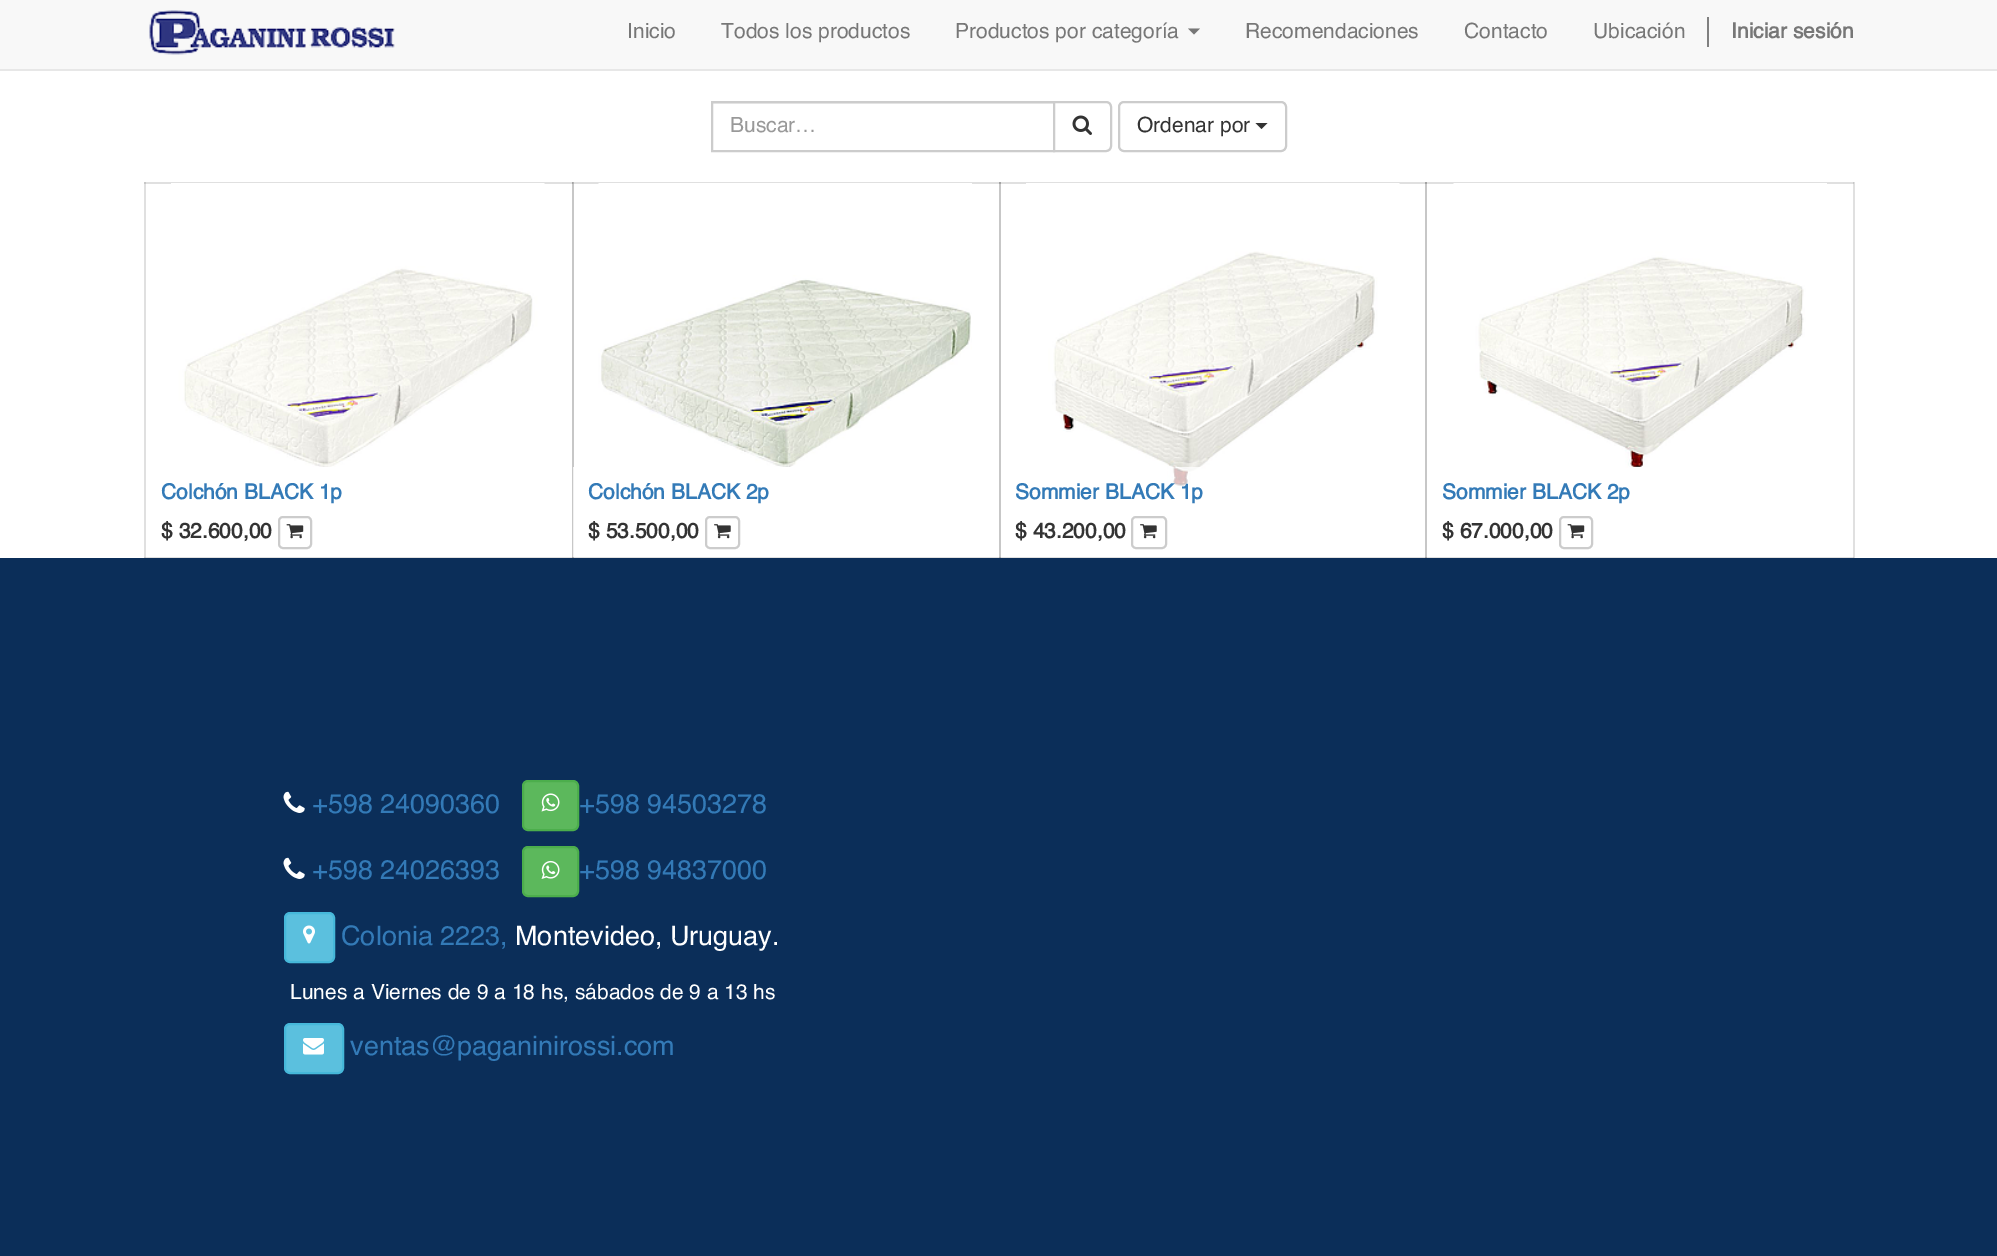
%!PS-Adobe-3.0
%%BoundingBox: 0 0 1997 1256
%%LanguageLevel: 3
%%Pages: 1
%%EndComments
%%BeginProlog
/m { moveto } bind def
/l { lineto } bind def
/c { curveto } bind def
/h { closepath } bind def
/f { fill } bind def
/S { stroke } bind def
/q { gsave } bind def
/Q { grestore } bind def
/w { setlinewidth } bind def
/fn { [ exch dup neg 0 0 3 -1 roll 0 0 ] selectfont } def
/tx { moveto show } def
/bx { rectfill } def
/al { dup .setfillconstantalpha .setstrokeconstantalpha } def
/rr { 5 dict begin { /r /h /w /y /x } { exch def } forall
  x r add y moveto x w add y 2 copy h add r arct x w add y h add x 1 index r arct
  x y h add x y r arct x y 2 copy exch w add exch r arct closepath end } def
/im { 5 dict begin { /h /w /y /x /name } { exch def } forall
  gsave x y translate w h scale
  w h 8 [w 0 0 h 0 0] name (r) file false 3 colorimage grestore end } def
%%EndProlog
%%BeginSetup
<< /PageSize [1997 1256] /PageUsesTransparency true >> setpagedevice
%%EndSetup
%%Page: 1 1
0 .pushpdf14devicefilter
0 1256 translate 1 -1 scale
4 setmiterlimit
1 setgray
0 0 1997 1256 bx
0.878 setgray
144 182 2 376 bx
144 557 429 1 bx
0.78 setgray
144 557 2 1 bx
0.878 setgray
144 182 429 2 bx
0.78 setgray
144 182 2 2 bx
572 182 2 376 bx
0.945 setgray
573 467 1 90 bx
0.957 setgray
573 467 1 2 bx
0.878 setgray
572 557 429 1 bx
0.702 setgray
572 557 2 1 bx
0.639 setgray
572 557 1 1 bx
0.878 setgray
572 182 429 2 bx
0.702 setgray
572 182 2 2 bx
0.639 setgray
572 182 1 2 bx
0.78 setgray
999 182 2 376 bx
0.878 setgray
999 557 428 1 bx
0.639 setgray
999 557 2 1 bx
0.878 setgray
999 182 428 2 bx
0.639 setgray
999 182 2 2 bx
0.78 setgray
1425 182 2 376 bx
0.878 setgray
1425 557 429 1 bx
0.639 setgray
1425 557 2 1 bx
0.878 setgray
1853 182 2 376 bx
0.78 setgray
1853 557 1 1 bx
0.973 setgray
0 0 1997 69 bx
0.906 setgray
0 69 1997 2 bx
(image0.raw) 149 10 246 45 im
/Helvetica-Regular 21 fn
0.467 setgray
(Inicio) 627 38 tx
(Todos los productos) 721 38 tx
(Productos por categoría) 955 38 tx
1188 28.5 m 1200 28.5 l 1194 34.5 l h f
(Recomendaciones) 1245 38 tx
(Contacto) 1464 38 tx
(Ubicación) 1593 38 tx
0.502 setgray
1707 17 2 30 bx
/Helvetica-Bold 21 fn
0.467 setgray
(Iniciar sesión) 1731 38 tx
0.925 setgray
713 103 340 1 bx
0.8 setgray
2 w
712 102 342 49 rectstroke
/Helvetica-Regular 21 fn
0.6 setgray
(Buscar…) 730 132 tx
1 setgray
1054 102 m 1106 102 l 1109 102 1111 104 1111 107 c 1111 146 l 1111 149 1109 151 1106 151 c 1054 151 l h q f Q
0.8 setgray
S
(image1.raw) 1072 115 20 20 im
1119 102 167 49 5 rr S
0.2 setgray
(Ordenar por) 1137 132 tx
1255.5 123 m 1267.5 123 l 1261.5 129 l h f
(image2.raw) 171 183 374 284 im
/Helvetica-Bold 21 fn
0.2 0.478 0.718 setrgbcolor
(Colchón BLACK 1p) 161 499 tx
0.2 setgray
($ 32.600,00) 161 538 tx
0.8 setgray
279 517 32 31 4 rr S
(image3.raw) 286 524 18 15 im
(image4.raw) 598 183 374 284 im
0.2 0.478 0.718 setrgbcolor
(Colchón BLACK 2p) 588 499 tx
0.2 setgray
($ 53.500,00) 588 538 tx
0.8 setgray
706 517 33 31 4 rr S
(image5.raw) 714 524 17 15 im
(image6.raw) 1026 183 374 307 im
0.75 al
1 setgray
1168 467 32 23 bx
0.2 al
1173 467 6 2 bx
1 al
0.2 0.478 0.718 setrgbcolor
(Sommier BLACK 1p) 1015 499 tx
0.2 setgray
($ 43.200,00) 1015 538 tx
0.8 setgray
1132 517 34 31 4 rr S
(image5.raw) 1140 524 17 15 im
0.878 setgray
1425 182 429 2 bx
0.639 setgray
1425 182 2 2 bx
0.78 setgray
1853 182 1 2 bx
(image7.raw) 1453 183 374 285 im
0.75 al
1 setgray
1629 467 19 1 bx
1 al
0.2 0.478 0.718 setrgbcolor
(Sommier BLACK 2p) 1442 499 tx
0.2 setgray
($ 67.000,00) 1442 538 tx
0.8 setgray
1560 517 32 31 4 rr S
(image3.raw) 1567 524 18 15 im
0.043 0.18 0.349 setrgbcolor
0 558 1997 698 bx
(image8.raw) 283 791 22 22 im
/Helvetica-Regular 27 fn
0.2 0.478 0.718 setrgbcolor
(+598 24090360) 312 813 tx
0.361 0.722 0.361 setrgbcolor
523 781 55 49 5 rr q f Q
0.298 0.682 0.298 setrgbcolor
S
(image9.raw) 541 793 19 19 im
0.2 0.478 0.718 setrgbcolor
(+598 94503278) 579 813 tx
(image8.raw) 283 857 22 22 im
(+598 24026393) 312 879 tx
0.361 0.722 0.361 setrgbcolor
523 847 55 49 5 rr q f Q
0.298 0.682 0.298 setrgbcolor
S
(image10.raw) 541 860 19 19 im
0.2 0.478 0.718 setrgbcolor
(+598 94837000) 579 879 tx
0.357 0.753 0.871 setrgbcolor
285 913 49 49 5 rr q f Q
0.275 0.722 0.855 setrgbcolor
S
(image11.raw) 303 925 12 19 im
0.2 0.478 0.718 setrgbcolor
(Colonia 2223,) 341 945 tx
1 setgray
(Montevideo, Uruguay.) 515 945 tx
/Helvetica-Regular 21 fn
(Lunes a Viernes de 9 a 18 hs, sábados de 9 a 13 hs) 290 999 tx
0.357 0.753 0.871 setrgbcolor
285 1024 58 49 5 rr q f Q
0.275 0.722 0.855 setrgbcolor
S
(image12.raw) 303 1038 21 17 im
/Helvetica-Regular 27 fn
0.2 0.478 0.718 setrgbcolor
(ventas@paganinirossi.com) 350 1055 tx
.poppdf14devicefilter showpage
%%EOF
